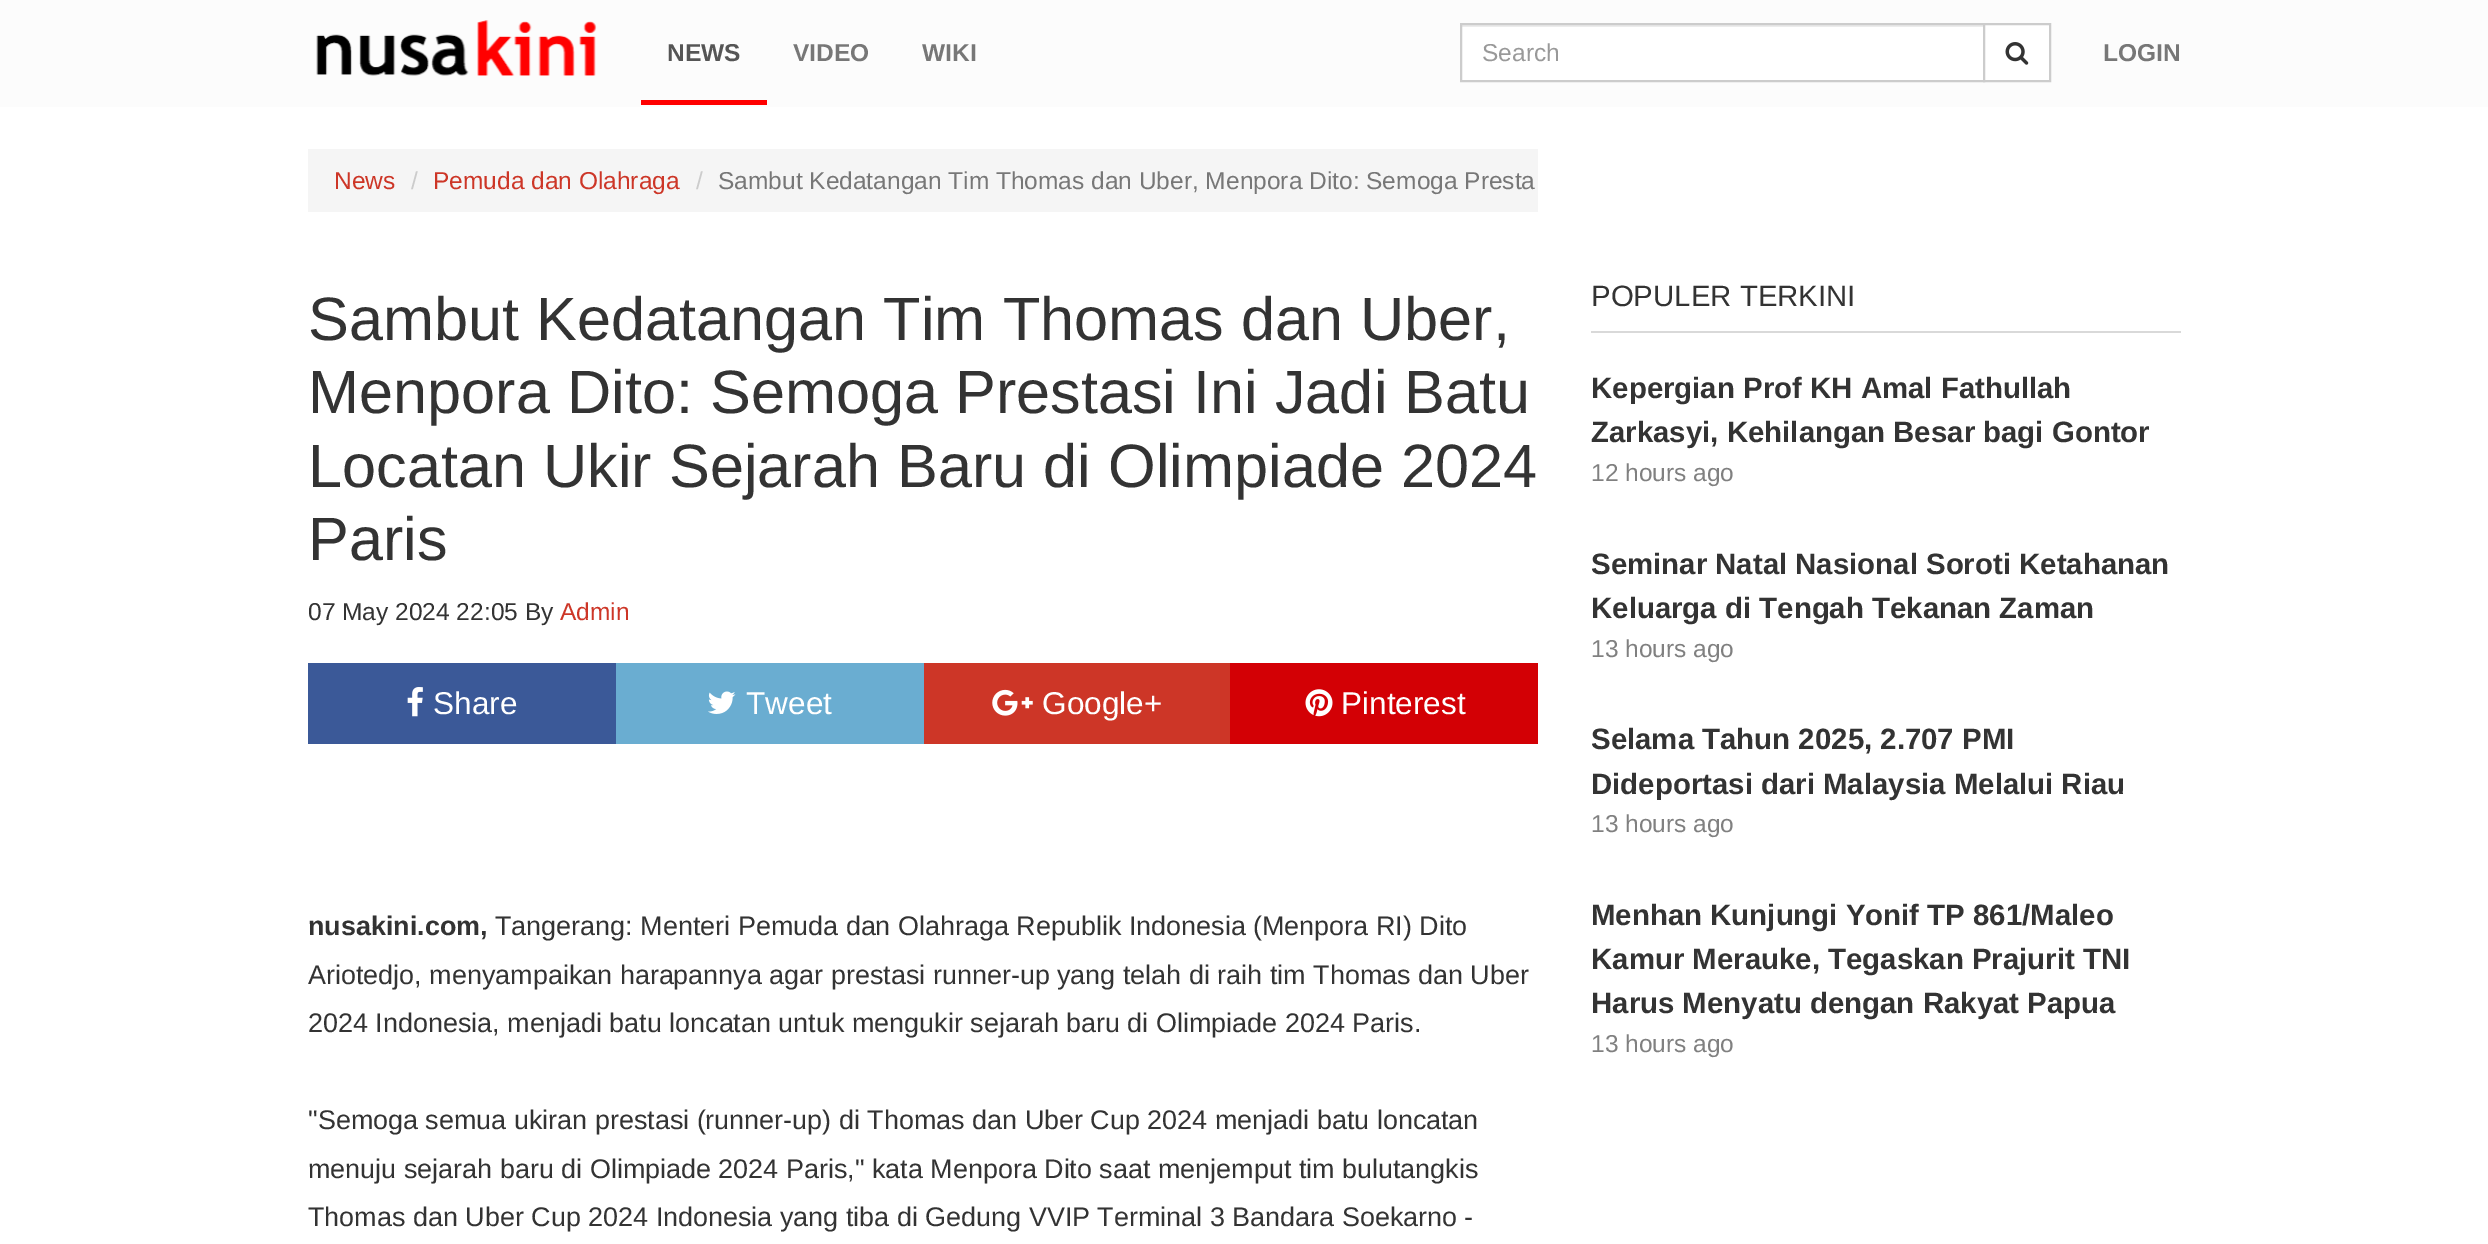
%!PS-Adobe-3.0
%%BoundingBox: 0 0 2488 1244
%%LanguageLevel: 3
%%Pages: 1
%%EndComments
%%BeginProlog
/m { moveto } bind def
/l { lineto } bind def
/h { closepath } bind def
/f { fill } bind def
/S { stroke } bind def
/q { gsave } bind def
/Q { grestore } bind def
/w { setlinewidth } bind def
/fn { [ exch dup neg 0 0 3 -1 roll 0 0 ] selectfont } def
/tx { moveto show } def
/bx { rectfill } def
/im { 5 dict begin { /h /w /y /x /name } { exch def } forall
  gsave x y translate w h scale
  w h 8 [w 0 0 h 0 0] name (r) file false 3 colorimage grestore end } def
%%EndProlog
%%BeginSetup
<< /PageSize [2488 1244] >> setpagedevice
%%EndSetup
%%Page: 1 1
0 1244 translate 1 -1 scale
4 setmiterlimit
1 setgray
0 0 2488 1244 bx
0.988 setgray
0 0 2488 107 bx
(image0.raw) 316 20 281 56 im
1 0 0 setrgbcolor
641 100 126 5 bx
/LiberationSans-Bold 24.5 fn
0.333 setgray
(NEWS) 667 61 tx
0.467 setgray
(VIDEO) 793 61 tx
(WIKI) 922 61 tx
1 setgray
1462 27 521 53 bx
0.925 setgray
1461 25 522 2 bx
0.8 setgray
2 w
1461 24 523 57 rectstroke
/LiberationSans-Regular 24.5 fn
0.6 setgray
(Search) 1482 61 tx
1 setgray
1984 24 m 2050 24 l 2050 81 l 1984 81 l h q f Q
0.8 setgray
S
(image1.raw) 2005 42 24 23 im
/LiberationSans-Bold 24.5 fn
0.467 setgray
(LOGIN) 2103 61 tx
0.961 setgray
308 149 1230 63 bx
/LiberationSans-Regular 24.5 fn
0.804 0.212 0.153 setrgbcolor
(News) 334 189 tx
0.8 setgray
(/) 411 189 tx
0.804 0.212 0.153 setrgbcolor
(Pemuda dan Olahraga) 433 189 tx
0.8 setgray
(/) 696 189 tx
0.467 setgray
(Sambut Kedatangan Tim Thomas dan Uber, Menpora Dito: Semoga Presta) 718 189 tx
/LiberationSans-Regular 61.25 fn
0.2 setgray
(Sambut Kedatangan Tim Thomas dan Uber,) 308 340 tx
(Menpora Dito: Semoga Prestasi Ini Jadi Batu) 308 413 tx
(Locatan Ukir Sejarah Baru di Olimpiade 2024) 308 487 tx
(Paris) 308 560 tx
/LiberationSans-Regular 24.5 fn
(07 May 2024 22:05 By) 308 620 tx
0.804 0.212 0.153 setrgbcolor
(Admin) 560 620 tx
0.231 0.349 0.596 setrgbcolor
308 663 308 81 bx
(image2.raw) 407 687 16 30 im
/LiberationSans-Regular 31.5 fn
1 setgray
(Share) 433 714 tx
0.416 0.678 0.82 setrgbcolor
616 663 308 81 bx
(image3.raw) 708 691 28 23 im
1 setgray
(Tweet) 746 714 tx
0.804 0.212 0.153 setrgbcolor
924 663 306 81 bx
(image4.raw) 992 689 41 27 im
1 setgray
(Google+) 1042 714 tx
0.827 0 0.02 setrgbcolor
1230 663 308 81 bx
(image5.raw) 1305 689 28 28 im
1 setgray
(Pinterest) 1341 714 tx
/LiberationSans-Bold 26.95 fn
0.2 setgray
(nusakini.com,) 308 935 tx
/LiberationSans-Regular 26.95 fn
(Tangerang: Menteri Pemuda dan Olahraga Republik Indonesia \(Menpora RI\) Dito) 495 935 tx
(Ariotedjo, menyampaikan harapannya agar prestasi runner-up yang telah di raih tim Thomas dan Uber) 308 984 tx
(2024 Indonesia, menjadi batu loncatan untuk mengukir sejarah baru di Olimpiade 2024 Paris.) 308 1032 tx
("Semoga semua ukiran prestasi \(runner-up\) di Thomas dan Uber Cup 2024 menjadi batu loncatan) 308 1129 tx
(menuju sejarah baru di Olimpiade 2024 Paris," kata Menpora Dito saat menjemput tim bulutangkis) 308 1178 tx
(Thomas dan Uber Cup 2024 Indonesia yang tiba di Gedung VVIP Terminal 3 Bandara Soekarno -) 308 1226 tx
0.851 setgray
1591 331 590 2 bx
/LiberationSans-Regular 29.4 fn
0.2 setgray
(POPULER TERKINI) 1591 306 tx
/LiberationSans-Bold 29.4 fn
(Kepergian Prof KH Amal Fathullah) 1591 398 tx
(Zarkasyi, Kehilangan Besar bagi Gontor) 1591 442 tx
/LiberationSans-Regular 24.5 fn
0.502 setgray
(12 hours ago) 1591 481 tx
/LiberationSans-Bold 29.4 fn
0.2 setgray
(Seminar Natal Nasional Soroti Ketahanan) 1591 574 tx
(Keluarga di Tengah Tekanan Zaman) 1591 618 tx
/LiberationSans-Regular 24.5 fn
0.502 setgray
(13 hours ago) 1591 657 tx
/LiberationSans-Bold 29.4 fn
0.2 setgray
(Selama Tahun 2025, 2.707 PMI) 1591 749 tx
(Dideportasi dari Malaysia Melalui Riau) 1591 794 tx
/LiberationSans-Regular 24.5 fn
0.502 setgray
(13 hours ago) 1591 832 tx
/LiberationSans-Bold 29.4 fn
0.2 setgray
(Menhan Kunjungi Yonif TP 861/Maleo) 1591 925 tx
(Kamur Merauke, Tegaskan Prajurit TNI) 1591 969 tx
(Harus Menyatu dengan Rakyat Papua) 1591 1013 tx
/LiberationSans-Regular 24.5 fn
0.502 setgray
(13 hours ago) 1591 1052 tx
showpage
%%EOF
